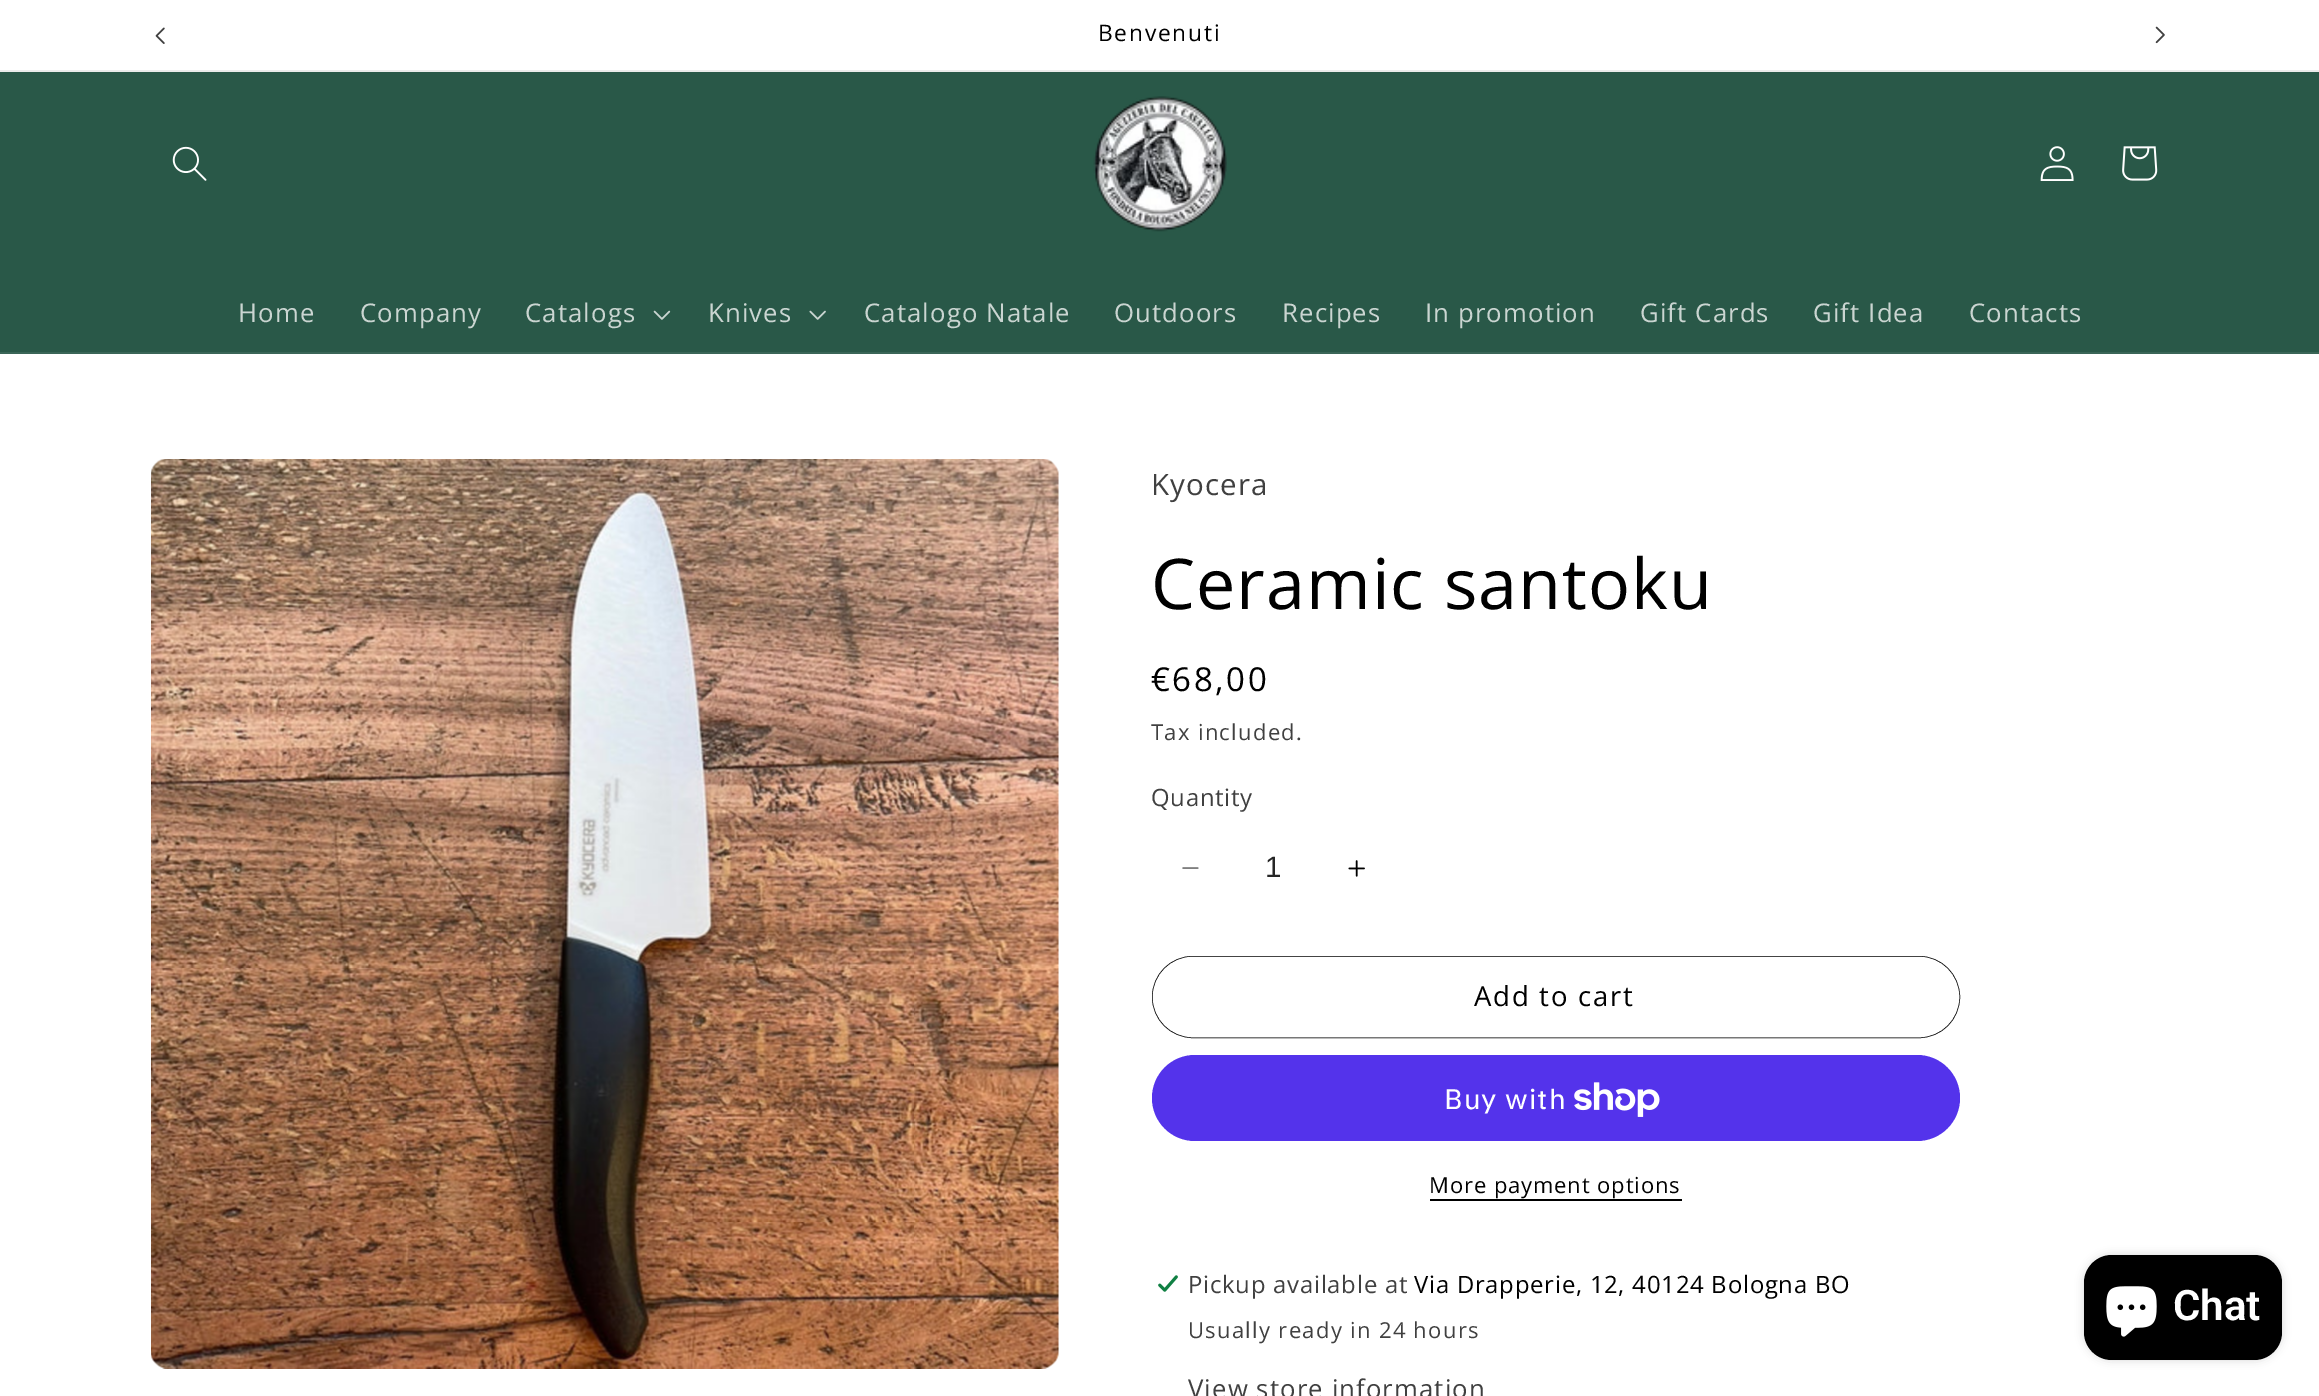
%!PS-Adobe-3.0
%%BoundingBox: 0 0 2319 1396
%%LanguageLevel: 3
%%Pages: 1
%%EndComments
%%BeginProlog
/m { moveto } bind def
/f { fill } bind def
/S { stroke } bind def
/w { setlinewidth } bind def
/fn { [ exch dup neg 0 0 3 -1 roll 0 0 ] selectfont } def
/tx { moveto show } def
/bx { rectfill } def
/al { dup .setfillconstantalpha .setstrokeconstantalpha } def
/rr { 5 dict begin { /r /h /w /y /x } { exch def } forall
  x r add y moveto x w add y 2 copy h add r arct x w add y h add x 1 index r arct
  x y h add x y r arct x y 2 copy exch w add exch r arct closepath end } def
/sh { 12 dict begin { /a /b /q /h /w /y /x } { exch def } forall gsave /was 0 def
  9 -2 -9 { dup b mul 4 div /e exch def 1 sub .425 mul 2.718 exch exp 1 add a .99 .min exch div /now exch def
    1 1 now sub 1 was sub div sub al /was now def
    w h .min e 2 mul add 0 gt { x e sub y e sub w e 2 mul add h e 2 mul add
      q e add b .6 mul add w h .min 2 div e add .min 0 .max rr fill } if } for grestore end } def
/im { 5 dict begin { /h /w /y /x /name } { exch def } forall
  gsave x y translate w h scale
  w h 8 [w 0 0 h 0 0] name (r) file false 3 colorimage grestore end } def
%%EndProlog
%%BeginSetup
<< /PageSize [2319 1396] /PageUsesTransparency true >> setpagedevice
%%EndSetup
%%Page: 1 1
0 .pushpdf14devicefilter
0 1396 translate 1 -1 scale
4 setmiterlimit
1 setgray
0 0 2319 1396 bx
0.922 setgray
0 70 2319 2 bx
(image0.raw) 155 27 10 17 im
/OpenSans-Regular 22.75 fn
0 setgray
1098 41 m 1.75 0 (Benvenuti) ashow
(image1.raw) 2155 26 10 18 im
0.161 0.345 0.282 setrgbcolor
0 72 2319 280 bx
0.227 0.396 0.341 setrgbcolor
0 352 2319 2 bx
(image2.raw) 172 146 35 35 im
(image3.raw) 1093 96 134 136 im
(image4.raw) 2040 146 34 35 im
(image5.raw) 2122 146 36 35 im
/OpenSans-Regular 25.75 fn
0.792 0.835 0.82 setrgbcolor
238 322 m 1.1 0 (Home) ashow
360 322 m 1.1 0 (Company) ashow
525 322 m 1.1 0 (Catalogs) ashow
(image6.raw) 653 310 18 10 im
708 322 m 1.1 0 (Knives) ashow
(image7.raw) 809 310 17 10 im
864 322 m 1.1 0 (Catalogo Natale) ashow
1114 322 m 1.1 0 (Outdoors) ashow
1282 322 m 1.1 0 (Recipes) ashow
1425 322 m 1.1 0 (In promotion) ashow
1640 322 m 1.1 0 (Gift Cards) ashow
1813 322 m 1.1 0 (Gift Idea) ashow
1969 322 m 1.1 0 (Contacts) ashow
(image8.raw) 151 459 908 910 im
/OpenSans-Regular 29.5 fn
0.251 setgray
1151 495 m 1.1 0 (Kyocera) ashow
/OpenSans-Regular 70 fn
0 setgray
1151 609 m 1 0 (Ceramic santoku) ashow
/OpenSans-Regular 33 fn
1151 691 m 2.5 0 (€68,00) ashow
/OpenSans-Regular 22 fn
0.251 setgray
1151 740 m 1.3 0 (Tax included.) ashow
/OpenSans-Regular 23.9 fn
1151 806 m 0.75 0 (Quantity) ashow
(image9.raw) 1182 867 17 2 im
/LiberationSans-Regular 29.5 fn
0.149 setgray
(1) 1265 877 tx
(image10.raw) 1348 860 17 17 im
0 setgray
0.5 w
1152.25 956.25 807.5 81.5 40.75 rr S
/OpenSans-Regular 27.5 fn
1474 1006 m 1.75 0 (Add to cart) ashow
0.329 0.2 0.922 setrgbcolor
1152 1055 808 86 43 rr f
/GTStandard-Regular 28 fn
1 setgray
1444 1109 m 1.1 0 (Buy with) ashow
(image11.raw) 1574 1082 86 35 im
/OpenSans-Regular 22 fn
0 setgray
1429 1193 m 0.9 0 (More payment options) ashow
1430 1199 252 2 bx
(image12.raw) 1158 1275 20 17 im
/OpenSans-Regular 23.9 fn
0.251 setgray
1188 1293 m 0.75 0 (Pickup available at) ashow
0 setgray
1414 1293 m 0.75 0 (Via Drapperie, 12, 40124 Bologna BO) ashow
/OpenSans-Regular 22 fn
0.251 setgray
1188 1338 m 1.3 0 (Usually ready in 24 hours) ashow
/OpenSans-Regular 25.75 fn
1188 1398 m 1.1 0 (View store information) ashow
0 setgray
2084 1255 198 105 28 4.5 0.15 sh
2084 1255 198 105 28 rr f
(image13.raw) 2106 1286 51 51 im
/Roboto-SemiBold 42 fn
1 setgray
(Chat) 2173 1320 tx
.poppdf14devicefilter showpage
%%EOF
